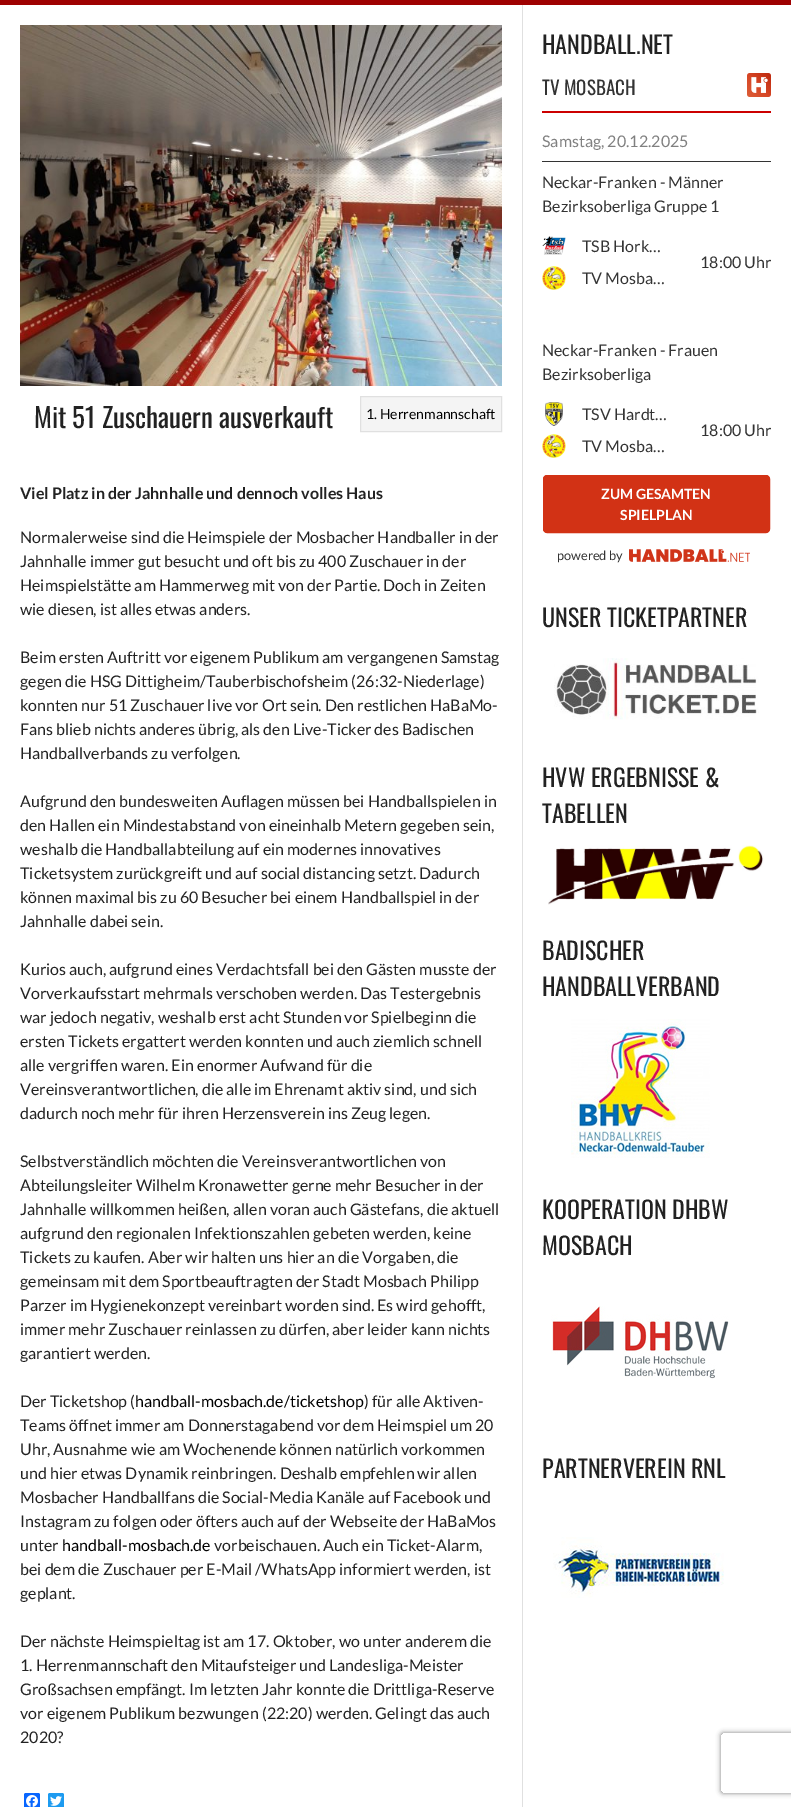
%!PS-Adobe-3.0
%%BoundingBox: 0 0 791 1807
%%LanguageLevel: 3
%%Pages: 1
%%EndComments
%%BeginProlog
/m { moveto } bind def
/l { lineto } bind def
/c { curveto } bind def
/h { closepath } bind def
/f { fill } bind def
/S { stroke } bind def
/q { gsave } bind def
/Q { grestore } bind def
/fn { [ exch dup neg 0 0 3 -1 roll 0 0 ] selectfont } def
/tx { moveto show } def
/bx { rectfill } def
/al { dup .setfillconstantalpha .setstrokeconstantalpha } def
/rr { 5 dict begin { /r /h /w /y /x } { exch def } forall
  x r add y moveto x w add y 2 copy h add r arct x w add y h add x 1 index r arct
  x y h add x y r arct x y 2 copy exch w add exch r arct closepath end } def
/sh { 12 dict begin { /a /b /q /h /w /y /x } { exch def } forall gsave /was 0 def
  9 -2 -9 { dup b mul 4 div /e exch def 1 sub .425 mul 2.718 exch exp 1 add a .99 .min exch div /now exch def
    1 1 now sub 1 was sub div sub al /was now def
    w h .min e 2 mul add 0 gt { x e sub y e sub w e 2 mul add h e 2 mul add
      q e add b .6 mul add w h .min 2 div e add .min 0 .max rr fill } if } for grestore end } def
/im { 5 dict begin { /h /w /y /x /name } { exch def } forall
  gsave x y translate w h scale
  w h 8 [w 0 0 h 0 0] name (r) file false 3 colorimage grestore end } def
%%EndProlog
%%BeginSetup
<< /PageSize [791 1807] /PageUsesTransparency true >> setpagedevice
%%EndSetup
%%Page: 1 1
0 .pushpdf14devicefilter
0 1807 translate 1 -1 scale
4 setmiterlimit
1 setgray
0 0 791 1807 bx
0.62 0.004 0.004 setrgbcolor
0 0 791 5 bx
0.878 setgray
522 5 1 1802 bx
(image0.raw) 20 25 482 361 im
/Oswald-Regular 27 fn
0.133 setgray
(Mit 51 Zuschauern ausverkauft) 34 428 tx
0.957 setgray
360.5 396.5 m 501.5 396.5 l 501.5 431.5 l 360.5 431.5 l h q f Q
0.878 setgray
S
/Lato-Regular 14 fn
0 setgray
(1. Herrenmannschaft) 366 419 tx
/Lato-Bold 16 fn
0.133 setgray
(Viel Platz in der Jahnhalle und dennoch volles Haus) 20 499 tx
/Lato-Regular 16 fn
(Normalerweise sind die Heimspiele der Mosbacher Handballer in der) 20 543 tx
(Jahnhalle immer gut besucht und oft bis zu 400 Zuschauer in der) 20 567 tx
(Heimspielstätte am Hammerweg mit von der Partie. Doch in Zeiten) 20 591 tx
(wie diesen, ist alles etwas anders.) 20 615 tx
(Beim ersten Auftritt vor eigenem Publikum am vergangenen Samstag) 20 663 tx
(gegen die HSG Dittigheim/Tauberbischofsheim \(26:32-Niederlage\)) 20 687 tx
(konnten nur 51 Zuschauer live vor Ort sein. Den restlichen HaBaMo-) 20 711 tx
(Fans blieb nichts anderes übrig, als den Live-Ticker des Badischen) 20 735 tx
(Handballverbands zu verfolgen.) 20 759 tx
(Aufgrund den bundesweiten Auflagen müssen bei Handballspielen in) 20 807 tx
(den Hallen ein Mindestabstand von eineinhalb Metern gegeben sein,) 20 831 tx
(weshalb die Handballabteilung auf ein modernes innovatives) 20 855 tx
(Ticketsystem zurückgreift und auf social distancing setzt. Dadurch) 20 879 tx
(können maximal bis zu 60 Besucher bei einem Handballspiel in der) 20 903 tx
(Jahnhalle dabei sein.) 20 927 tx
(Kurios auch, aufgrund eines Verdachtsfall bei den Gästen musste der) 20 975 tx
(Vorverkaufsstart mehrmals verschoben werden. Das Testergebnis) 20 999 tx
(war jedoch negativ, weshalb erst acht Stunden vor Spielbeginn die) 20 1023 tx
(ersten Tickets ergattert werden konnten und auch ziemlich schnell) 20 1047 tx
(alle vergriffen waren. Ein enormer Aufwand für die) 20 1071 tx
(Vereinsverantwortlichen, die alle im Ehrenamt aktiv sind, und sich) 20 1095 tx
(dadurch noch mehr für ihren Herzensverein ins Zeug legen.) 20 1119 tx
(Selbstverständlich möchten die Vereinsverantwortlichen von) 20 1167 tx
(Abteilungsleiter Wilhelm Kronawetter gerne mehr Besucher in der) 20 1191 tx
(Jahnhalle willkommen heißen, allen voran auch Gästefans, die aktuell) 20 1215 tx
(aufgrund den regionalen Infektionszahlen gebeten werden, keine) 20 1239 tx
(Tickets zu kaufen. Aber wir halten uns hier an die Vorgaben, die) 20 1263 tx
(gemeinsam mit dem Sportbeauftragten der Stadt Mosbach Philipp) 20 1287 tx
(Parzer im Hygienekonzept vereinbart worden sind. Es wird gehofft,) 20 1311 tx
(immer mehr Zuschauer reinlassen zu dürfen, aber leider kann nichts) 20 1335 tx
(garantiert werden.) 20 1359 tx
(Der Ticketshop \() 20 1407 tx
0 setgray
(handball-mosbach.de/ticketshop) 135 1407 tx
0.133 setgray
(\) für alle Aktiven-) 364 1407 tx
(Teams öffnet immer am Donnerstagabend vor dem Heimspiel um 20) 20 1431 tx
(Uhr, Ausnahme wie am Wochenende können natürlich vorkommen) 20 1455 tx
(und hier etwas Dynamik reinbringen. Deshalb empfehlen wir allen) 20 1479 tx
(Mosbacher Handballfans die Social-Media Kanäle auf Facebook und) 20 1503 tx
(Instagram zu folgen oder öfters auch auf der Webseite der HaBaMos) 20 1527 tx
(unter) 20 1551 tx
0 setgray
(handball-mosbach.de) 62 1551 tx
0.133 setgray
(vorbeischauen. Auch ein Ticket-Alarm,) 214 1551 tx
(bei dem die Zuschauer per E-Mail /WhatsApp informiert werden, ist) 20 1575 tx
(geplant.) 20 1599 tx
(Der nächste Heimspieltag ist am 17. Oktober, wo unter anderem die) 20 1647 tx
(1. Herrenmannschaft den Mitaufsteiger und Landesliga-Meister) 20 1671 tx
(Großsachsen empfängt. Im letzten Jahr konnte die Drittliga-Reserve) 20 1695 tx
(vor eigenem Publikum bezwungen \(22:20\) werden. Gelingt das auch) 20 1719 tx
(2020?) 20 1743 tx
0.031 0.4 1 setrgbcolor
24 1793 16 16 2 rr f
(image1.raw) 26 1795 12 12 im
0.114 0.608 0.941 setrgbcolor
48 1793 16 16 2 rr f
(image2.raw) 50 1796 12 10 im
/Oswald-Regular 24 fn
0.133 setgray
(HANDBALL.NET) 542 54 tx
0.8 0 0 setrgbcolor
542 111 229 2 bx
/Oswald-Regular 19 fn
0.2 setgray
(TV MOSBACH) 542 95 tx
(image3.raw) 747 73 24 24 im
542 161 229 1 bx
/Lato-Regular 16 fn
0.502 setgray
(Samstag, 20.12.2025) 542 147 tx
0.2 setgray
(Neckar-Franken - Männer) 542 188 tx
(Bezirksoberliga Gruppe 1) 542 212 tx
(image4.raw) 542 236 24 19 im
(TSB Hork…) 582 252 tx
(image5.raw) 542 266 24 24 im
(TV Mosba…) 582 284 tx
(18:00 Uhr) 700 268 tx
(Neckar-Franken - Frauen) 542 356 tx
(Bezirksoberliga) 542 380 tx
(image6.raw) 545 402 18 24 im
(TSV Hardt…) 582 420 tx
(image5.raw) 542 434 24 24 im
(TV Mosba…) 582 452 tx
(18:00 Uhr) 700 436 tx
0.824 0.196 0.082 setrgbcolor
543.5 475.5 226 57 3.5 rr q f Q
S
/Lato-Bold 14 fn
1 setgray
(ZUM GESAMTEN) 601 499 tx
(SPIELPLAN) 620 520 tx
/Lato-Regular 12.75 fn
0.2 setgray
(powered by) 557 560 tx
(image7.raw) 629 549 121 13 im
/Oswald-Regular 24 fn
0.133 setgray
(UNSER TICKETPARTNER) 542 627 tx
(image8.raw) 554 658 205 62 im
(HVW ERGEBNISSE &) 542 787 tx
(TABELLEN) 542 823 tx
(image9.raw) 548 845 216 60 im
(BADISCHER) 542 960 tx
(HANDBALLVERBAND) 542 996 tx
(image10.raw) 571 1019 139 139 im
(KOOPERATION DHBW) 542 1219 tx
(MOSBACH) 542 1255 tx
(image11.raw) 551 1306 178 73 im
(PARTNERVEREIN RNL) 542 1478 tx
(image12.raw) 553 1537 171 61 im
q
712 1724 m 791 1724 l 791 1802 l 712 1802 l h 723 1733 m 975 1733 l 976 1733 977 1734 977 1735 c 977 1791 l 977 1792 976 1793 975 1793 c 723 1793 l 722 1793 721 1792 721 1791 c 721 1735 l 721 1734 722 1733 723 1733 c h eoclip newpath
0.502 setgray
721 1733 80 60 2 2.5 1 sh
Q
.poppdf14devicefilter showpage
%%EOF
